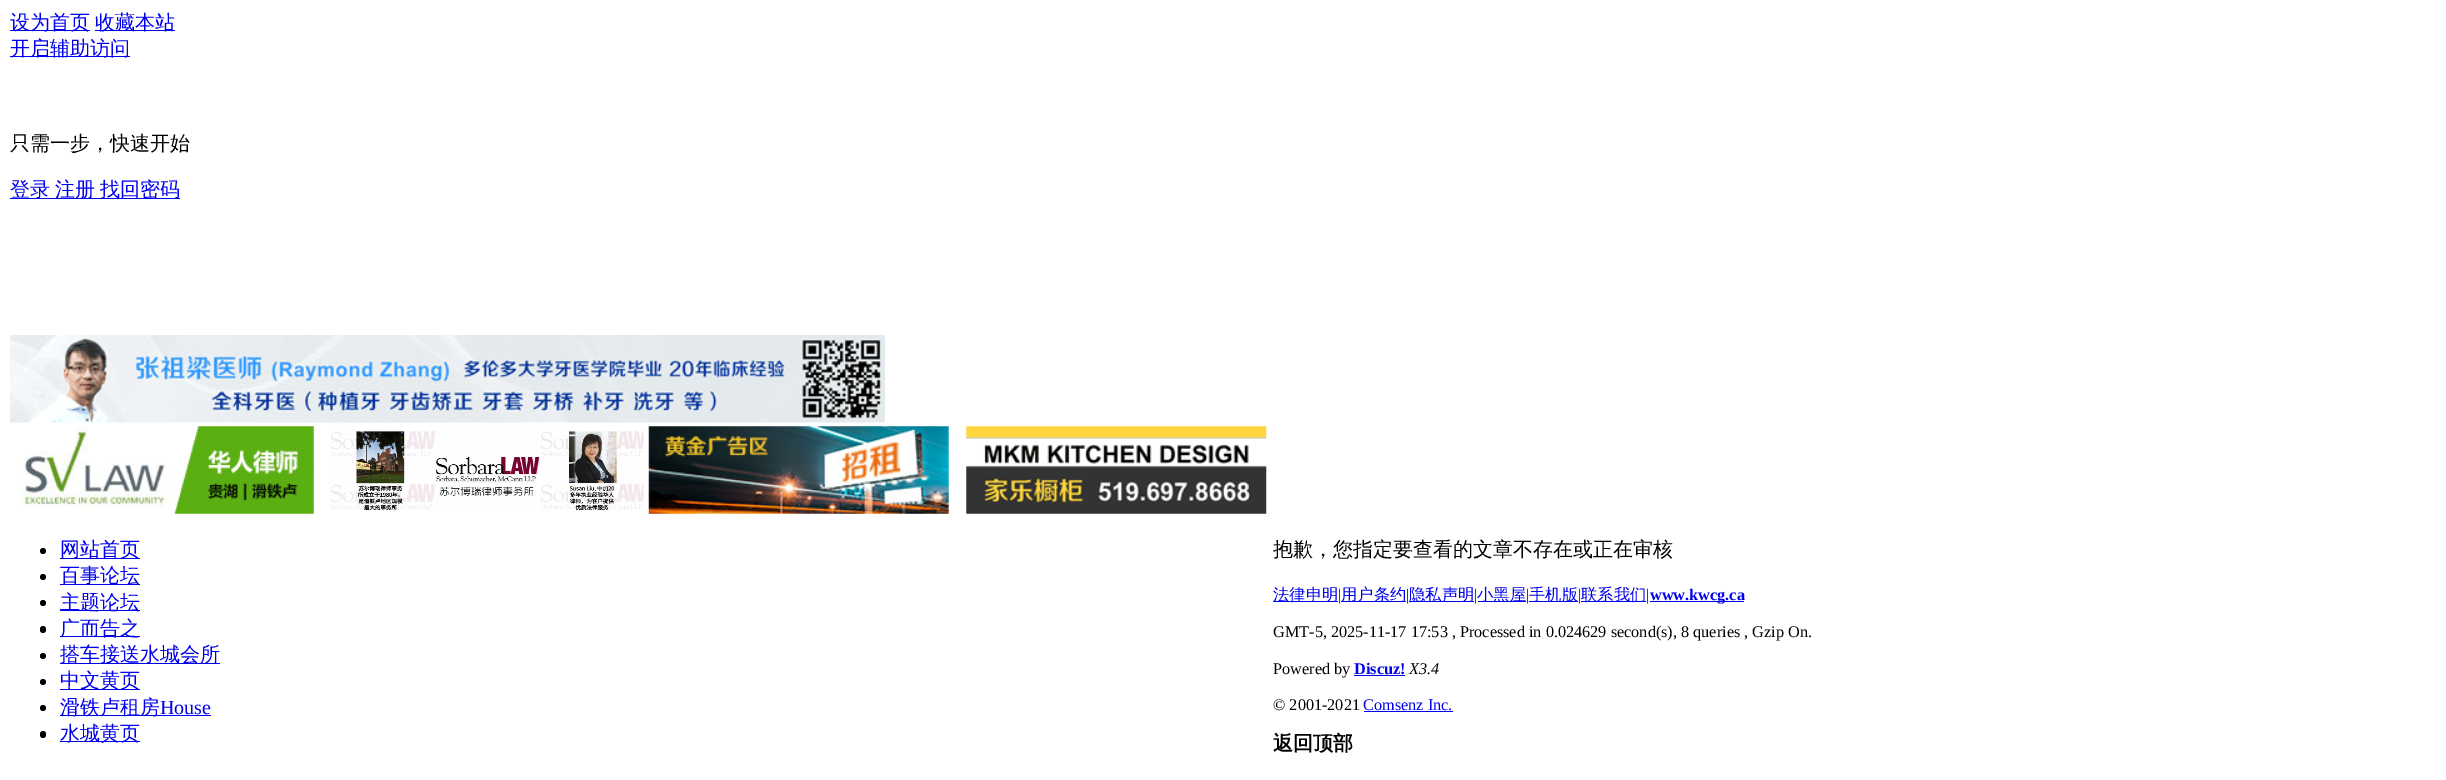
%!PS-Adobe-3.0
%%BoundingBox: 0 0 2446 780
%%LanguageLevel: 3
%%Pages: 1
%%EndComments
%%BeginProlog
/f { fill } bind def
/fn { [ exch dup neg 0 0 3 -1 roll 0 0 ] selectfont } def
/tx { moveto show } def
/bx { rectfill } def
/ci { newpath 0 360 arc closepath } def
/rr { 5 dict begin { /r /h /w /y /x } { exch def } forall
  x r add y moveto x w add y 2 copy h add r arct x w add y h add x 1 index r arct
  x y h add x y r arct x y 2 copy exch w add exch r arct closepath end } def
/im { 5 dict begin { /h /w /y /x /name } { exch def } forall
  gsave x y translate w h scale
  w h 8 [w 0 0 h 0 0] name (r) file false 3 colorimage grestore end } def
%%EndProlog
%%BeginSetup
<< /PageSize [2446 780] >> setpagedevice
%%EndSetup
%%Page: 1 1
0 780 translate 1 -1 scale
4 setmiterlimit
1 setgray
0 0 2446 780 bx
0 0 0.933 setrgbcolor
10 30 80 1 bx
/WenQuanYiZenHei-Medium 20 fn
(设为首页) 10 29 tx
95 30 80 1 bx
(收藏本站) 95 29 tx
10 56 120 1 bx
(开启辅助访问) 10 55 tx
0 setgray
(只需一步，快速开始) 10 150 tx
0 0 0.933 setrgbcolor
10 198 170 1 bx
(登录) 10 196 tx
(注册) 55 196 tx
(找回密码) 100 196 tx
(image0.raw) 10 335 875 88 im
(image1.raw) 17 426 297 88 im
(image2.raw) 331 430 313 81 im
(image3.raw) 648 426 301 88 im
(image4.raw) 966 426 301 88 im
0 setgray
43 551 3 ci f
0 0 0.933 setrgbcolor
60 558 80 1 bx
(网站首页) 60 556 tx
0 setgray
43 577 3 ci f
0 0 0.933 setrgbcolor
60 584 80 1 bx
(百事论坛) 60 582 tx
0 setgray
43 603 3 ci f
0 0 0.933 setrgbcolor
60 610 80 1 bx
(主题论坛) 60 609 tx
0 setgray
40 626 6 7 3 rr f
0 0 0.933 setrgbcolor
60 636 80 1 bx
(广而告之) 60 635 tx
0 setgray
43 656 3 ci f
0 0 0.933 setrgbcolor
60 663 160 1 bx
(搭车接送水城会所) 60 661 tx
0 setgray
43 682 3 ci f
0 0 0.933 setrgbcolor
60 689 80 1 bx
(中文黄页) 60 687 tx
0 setgray
43 708 3 ci f
0 0 0.933 setrgbcolor
60 715 151 1 bx
(滑铁卢租房) 60 714 tx
/LiberationSerif-Regular 20 fn
(House) 160 714 tx
0 setgray
40 731 6 7 3 rr f
0 0 0.933 setrgbcolor
60 741 80 1 bx
/WenQuanYiZenHei-Medium 20 fn
(水城黄页) 60 740 tx
0 setgray
(抱歉，您指定要查看的文章不存在或正在审核) 1273 556 tx
0 0 0.933 setrgbcolor
1273 601 65 1 bx
/WenQuanYiZenHei-Medium 16.25 fn
(法律申明) 1273 600 tx
/LiberationSerif-Regular 16.25 fn
0 setgray
(|) 1338 600 tx
0 0 0.933 setrgbcolor
1341 601 65 1 bx
/WenQuanYiZenHei-Medium 16.25 fn
(用户条约) 1341 600 tx
/LiberationSerif-Regular 16.25 fn
0 setgray
(|) 1406 600 tx
0 0 0.933 setrgbcolor
1409 601 65 1 bx
/WenQuanYiZenHei-Medium 16.25 fn
(隐私声明) 1409 600 tx
/LiberationSerif-Regular 16.25 fn
0 setgray
(|) 1474 600 tx
0 0 0.933 setrgbcolor
1478 601 48 1 bx
/WenQuanYiZenHei-Medium 16.25 fn
(小黑屋) 1477 600 tx
/LiberationSerif-Regular 16.25 fn
0 setgray
(|) 1526 600 tx
0 0 0.933 setrgbcolor
1529 601 49 1 bx
/WenQuanYiZenHei-Medium 16.25 fn
(手机版) 1529 600 tx
/LiberationSerif-Regular 16.25 fn
0 setgray
(|) 1578 600 tx
0 0 0.933 setrgbcolor
1581 601 65 1 bx
/WenQuanYiZenHei-Medium 16.25 fn
(联系我们) 1581 600 tx
/LiberationSerif-Regular 16.25 fn
0 setgray
(|) 1646 600 tx
0 0 0.933 setrgbcolor
1650 601 94 1 bx
/LiberationSerif-Bold 16.25 fn
(www.kwcg.ca) 1650 600 tx
/LiberationSerif-Regular 16.25 fn
0 setgray
(GMT-5, 2025-11-17 17:53 , Processed in 0.024629 second\(s\), 8 queries , Gzip On.) 1273 637 tx
(Powered by) 1273 674 tx
/LiberationSerif-Bold 16.25 fn
0 0 0.933 setrgbcolor
(Discuz!) 1354 674 tx
1354 675 51 1 bx
/LiberationSerif-Italic 16.25 fn
0 setgray
(X3.4) 1409 674 tx
/LiberationSerif-Regular 16.25 fn
(© 2001-2021) 1273 710 tx
0 0 0.933 setrgbcolor
(Comsenz Inc.) 1363 710 tx
1364 711 89 1 bx
/WenQuanYiZenHei-Bold 20 fn
0 setgray
(返回顶部) 1273 750 tx
showpage
%%EOF
